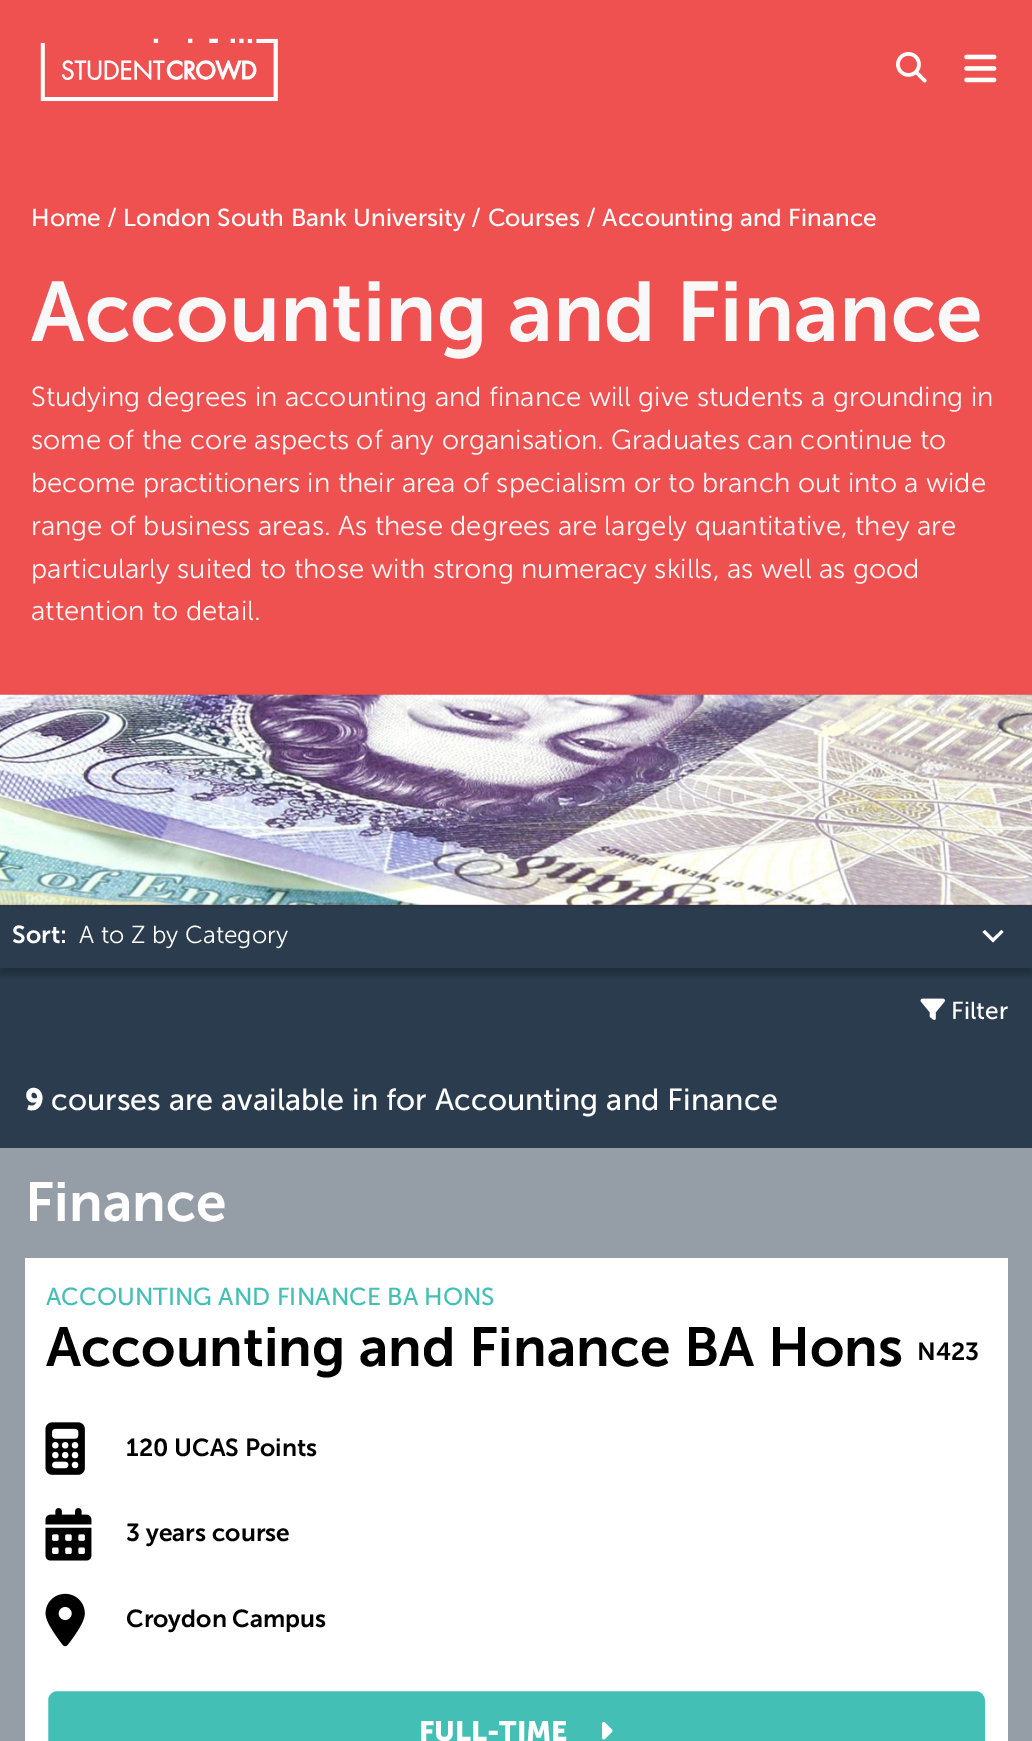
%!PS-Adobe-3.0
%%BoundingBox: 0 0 1032 1741
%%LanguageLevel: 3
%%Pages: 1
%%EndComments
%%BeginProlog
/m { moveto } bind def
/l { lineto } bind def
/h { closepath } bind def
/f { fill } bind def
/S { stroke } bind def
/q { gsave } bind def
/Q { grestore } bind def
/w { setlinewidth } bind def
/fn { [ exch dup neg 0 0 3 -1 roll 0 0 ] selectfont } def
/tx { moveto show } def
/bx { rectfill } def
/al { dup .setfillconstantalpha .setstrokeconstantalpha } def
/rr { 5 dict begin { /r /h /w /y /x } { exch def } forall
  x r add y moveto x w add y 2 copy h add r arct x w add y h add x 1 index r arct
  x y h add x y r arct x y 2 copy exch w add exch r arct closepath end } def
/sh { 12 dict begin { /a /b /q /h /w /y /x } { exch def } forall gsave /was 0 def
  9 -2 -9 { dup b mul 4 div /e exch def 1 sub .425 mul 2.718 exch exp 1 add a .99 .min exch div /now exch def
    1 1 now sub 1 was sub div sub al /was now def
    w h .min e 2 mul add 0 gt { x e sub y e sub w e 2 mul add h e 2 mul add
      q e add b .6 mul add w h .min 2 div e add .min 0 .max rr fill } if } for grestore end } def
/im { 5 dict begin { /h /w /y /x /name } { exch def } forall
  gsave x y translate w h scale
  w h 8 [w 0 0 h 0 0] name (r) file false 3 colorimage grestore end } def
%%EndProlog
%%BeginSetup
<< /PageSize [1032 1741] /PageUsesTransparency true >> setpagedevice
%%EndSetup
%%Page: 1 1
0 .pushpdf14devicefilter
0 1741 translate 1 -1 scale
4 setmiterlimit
0.937 0.314 0.314 setrgbcolor
0 0 1032 1741 bx
(image0.raw) 40 38 238 64 im
(image1.raw) 896 52 31 31 im
(image2.raw) 964 54 33 29 im
/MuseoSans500-Regular 24.5 fn
1 setgray
(Home / London South Bank University / Courses / Accounting and Finance) 31 226 tx
/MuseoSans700-SemiBold 84 fn
0.973 setgray
(Accounting and Finance) 31 341 tx
/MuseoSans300-Light 27.55 fn
(Studying degrees in accounting and finance will give students a grounding in) 31 406 tx
(some of the core aspects of any organisation. Graduates can continue to) 31 449 tx
(become practitioners in their area of specialism or to branch out into a wide) 31 492 tx
(range of business areas. As these degrees are largely quantitative, they are) 31 535 tx
(particularly suited to those with strong numeracy skills, as well as good) 31 578 tx
(attention to detail.) 31 620 tx
0.165 0.235 0.306 setrgbcolor
0 905 1032 243 bx
0 setgray
2 698 1029 207 0 2 0.1 sh
0 697 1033 210 0 2.5 0.1 sh
(image3.raw) 0 694 1032 211 im
q
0 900 m 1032 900 l 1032 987 l 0 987 l h 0 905 m 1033 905 l 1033 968 l 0 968 l h eoclip newpath
0 912 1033 63 0 3.5 0.25 sh
Q
/MuseoSans700-SemiBold 24.5 fn
1 setgray
(Sort:) 12 943 tx
1001.5 930 m 1003.5 932 l 993 942.5 l 982.5 932 l 985 930 l 993 938 l h eofill
/MuseoSans300-Light 24.5 fn
(A to Z by Category) 79 943 tx
(image4.raw) 920 998 25 22 im
/MuseoSans500-Regular 24.5 fn
(Filter) 951 1019 tx
/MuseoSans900-Bold 30.6 fn
(9) 25 1110 tx
/MuseoSans500-Regular 30.6 fn
(courses are available in for Accounting and Finance) 51 1110 tx
0.584 0.62 0.655 setrgbcolor
0 1148 1032 593 bx
/MuseoSans700-SemiBold 55.1 fn
1 setgray
(Finance) 25 1221 tx
25 1258 983 483 bx
/MuseoSans500-Regular 24.5 fn
0.267 0.749 0.714 setrgbcolor
(ACCOUNTING AND FINANCE BA HONS) 46 1305 tx
/MuseoSans700-SemiBold 55.1 fn
0 setgray
(Accounting and Finance BA Hons) 46 1366 tx
/MuseoSans700-SemiBold 24.5 fn
(N423) 917 1360 tx
(image5.raw) 45 1422 40 53 im
(120 UCAS Points) 126 1456 tx
(image6.raw) 45 1508 47 53 im
(3 years course) 126 1541 tx
(image7.raw) 45 1593 40 54 im
(Croydon Campus) 126 1627 tx
0.267 0.749 0.714 setrgbcolor
47 1690 939 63 10 rr q f Q
1 setgray
2 w
S
/MuseoSans900-Bold 28 fn
(FULL-TIME) 419 1741 tx
(image8.raw) 602 1722 11 18 im
.poppdf14devicefilter showpage
%%EOF
